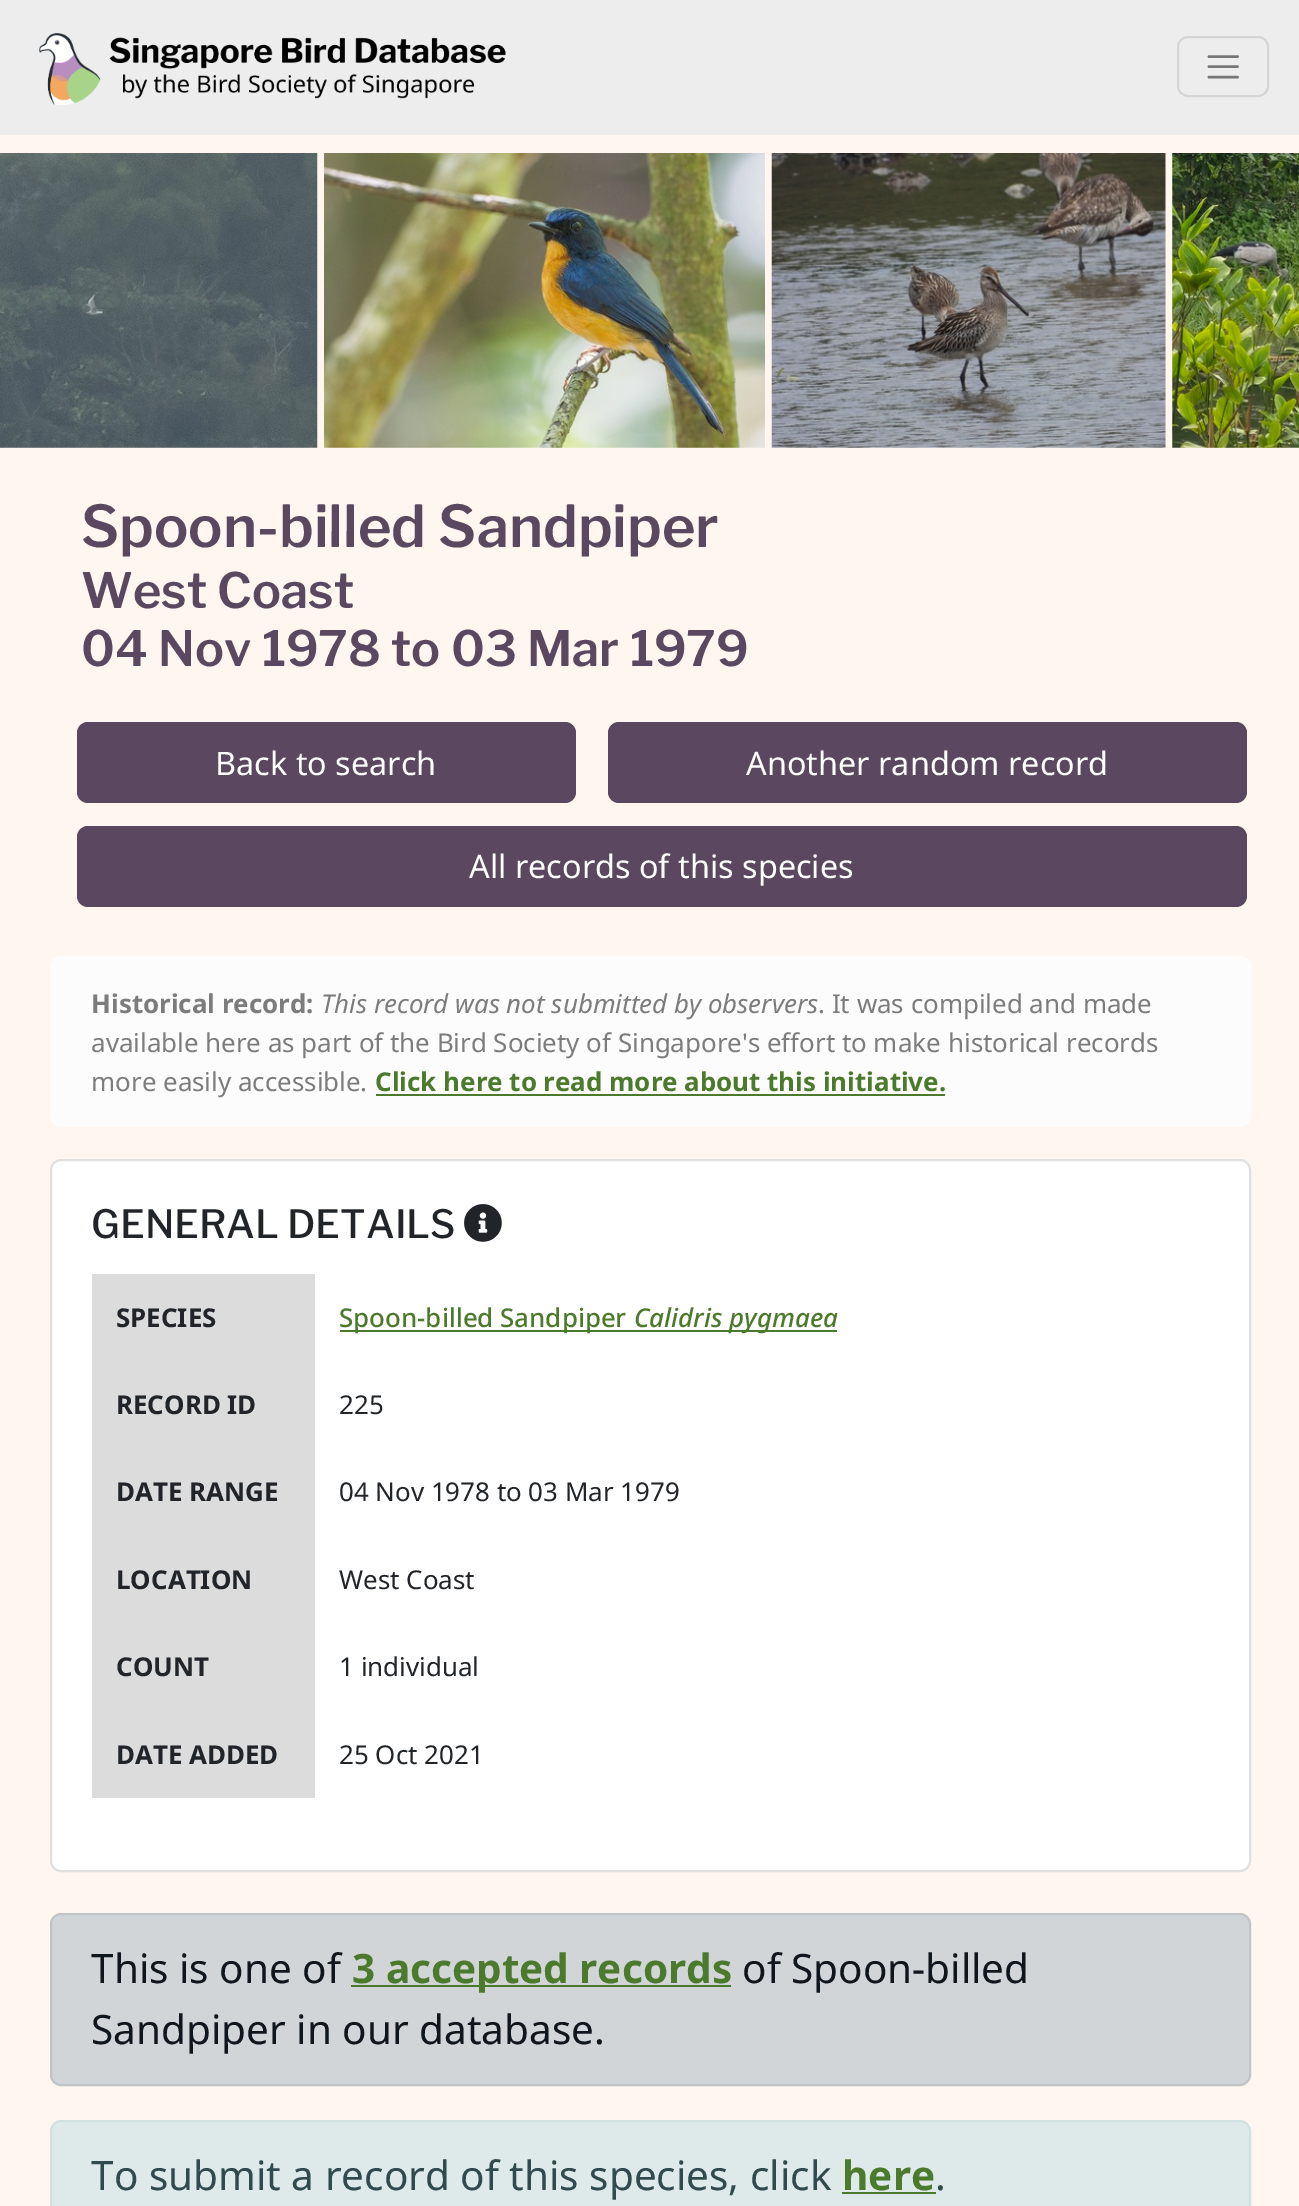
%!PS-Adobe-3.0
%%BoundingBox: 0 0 1299 2206
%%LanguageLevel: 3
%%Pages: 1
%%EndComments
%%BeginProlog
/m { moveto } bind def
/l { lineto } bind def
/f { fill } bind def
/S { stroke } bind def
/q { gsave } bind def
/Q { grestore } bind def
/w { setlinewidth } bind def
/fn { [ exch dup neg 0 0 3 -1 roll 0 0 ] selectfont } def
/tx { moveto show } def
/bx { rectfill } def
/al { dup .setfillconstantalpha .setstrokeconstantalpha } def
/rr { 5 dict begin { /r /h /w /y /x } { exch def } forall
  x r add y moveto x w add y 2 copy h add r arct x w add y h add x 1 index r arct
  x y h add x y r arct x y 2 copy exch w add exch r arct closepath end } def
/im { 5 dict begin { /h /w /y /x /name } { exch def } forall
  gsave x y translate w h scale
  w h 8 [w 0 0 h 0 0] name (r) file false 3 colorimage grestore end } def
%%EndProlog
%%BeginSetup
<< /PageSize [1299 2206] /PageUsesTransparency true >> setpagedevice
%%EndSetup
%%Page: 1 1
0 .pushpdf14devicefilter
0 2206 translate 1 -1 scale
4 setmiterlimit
0.996 0.965 0.937 setrgbcolor
0 0 1299 2206 bx
0.929 setgray
0 0 1299 135 bx
(image0.raw) 39 33 467 72 im
0.835 setgray
2 w
1178 37 90 59 10 rr S
0.467 setgray
2.6 w
1 setlinecap
1209 56.5 m 1237.5 56.5 l 1209 66.5 m 1237.5 66.5 l 1209 77 m 1237.5 77 l S
(image1.raw) 0 153 318 295 im
(image2.raw) 324 153 441 295 im
(image3.raw) 771 153 395 295 im
(image4.raw) 1172 153 127 295 im
/LibreFranklin-SemiBold 57.5 fn
0.361 0.278 0.376 setrgbcolor
(Spoon-billed Sandpiper) 81 547 tx
/LibreFranklin-SemiBold 48.6 fn
(West Coast) 81 608 tx
(04 Nov 1978 to 03 Mar 1979) 81 666 tx
77 722 499 81 11 rr f
/NotoSans-Regular 32.4 fn
1 setgray
(Back to search) 215 775 tx
0.361 0.278 0.376 setrgbcolor
608 722 639 81 11 rr f
1 setgray
(Another random record) 746 775 tx
0.361 0.278 0.376 setrgbcolor
77 826 1170 81 11 rr f
1 setgray
(All records of this species) 469 878 tx
0.984 0.988 0.984 setrgbcolor
50 956 1201 171 11 rr f
/NotoSans-Bold 25.9 fn
0.482 0.486 0.482 setrgbcolor
(Historical record:) 91 1013 tx
/NotoSans-Italic 25.9 fn
(This record was not submitted by observers) 321 1013 tx
/NotoSans-Regular 25.9 fn
(. It was compiled and made) 818 1013 tx
(available here as part of the Bird Society of Singapore's effort to make) 91 1052 tx
(historical records) 948 1052 tx
(more easily accessible.) 91 1091 tx
/NotoSans-Bold 25.9 fn
0.298 0.478 0.176 setrgbcolor
(Click here to read more about this initiative.) 375 1091 tx
376 1094 569 2 bx
1 setgray
50 1159 1201 713 11 rr f
0.12 al
0 setgray
2 w
0 setlinecap
51 1160 1199 711 10 rr S
/LibreFranklin-Medium 38.9 fn
1 al
0.129 0.145 0.161 setrgbcolor
(GENERAL DETAILS) 91 1238 tx
(image5.raw) 464 1204 38 38 im
0.863 setgray
92 1274 223 524 bx
/NotoSans-Bold 25.9 fn
0.129 0.145 0.161 setrgbcolor
(SPECIES) 116 1327 tx
0.298 0.478 0.176 setrgbcolor
340 1330 497 2 bx
/NotoSans-Medium 25.9 fn
(Spoon-billed Sandpiper) 339 1327 tx
/NotoSans-MediumItalic 25.9 fn
(Calidris pygmaea) 634 1327 tx
/NotoSans-Bold 25.9 fn
0.129 0.145 0.161 setrgbcolor
(RECORD ID) 116 1414 tx
/NotoSans-Regular 25.9 fn
(225) 339 1414 tx
/NotoSans-Bold 25.9 fn
(DATE RANGE) 116 1501 tx
/NotoSans-Regular 25.9 fn
(04 Nov 1978 to 03 Mar 1979) 339 1501 tx
/NotoSans-Bold 25.9 fn
(LOCATION) 116 1589 tx
/NotoSans-Regular 25.9 fn
(West Coast) 339 1589 tx
/NotoSans-Bold 25.9 fn
(COUNT) 116 1676 tx
/NotoSans-Regular 25.9 fn
(1 individual) 339 1676 tx
/NotoSans-Bold 25.9 fn
(DATE ADDED) 116 1764 tx
/NotoSans-Regular 25.9 fn
(25 Oct 2021) 339 1764 tx
0.824 0.835 0.843 setrgbcolor
51 1914 1199 171 10 rr q f Q
0.753 0.769 0.78 setrgbcolor
S
/NotoSans-Regular 40.5 fn
0.063 0.086 0.114 setrgbcolor
(This is one of) 91 1983 tx
0.298 0.478 0.176 setrgbcolor
351 1985 380 2 bx
/NotoSans-Bold 40.5 fn
(3 accepted records) 352 1983 tx
/NotoSans-Regular 40.5 fn
0.063 0.086 0.114 setrgbcolor
(of Spoon-billed) 742 1983 tx
(Sandpiper in our database.) 91 2044 tx
0.871 0.914 0.918 setrgbcolor
51 2121 1199 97 10 rr q f Q
0.82 0.878 0.882 setrgbcolor
S
0.188 0.29 0.302 setrgbcolor
(To submit a record of this species, click) 91 2190 tx
/NotoSans-Bold 40.5 fn
0.298 0.478 0.176 setrgbcolor
(here) 842 2190 tx
842 2192 94 2 bx
/NotoSans-Regular 40.5 fn
0.188 0.29 0.302 setrgbcolor
(.) 935 2190 tx
.poppdf14devicefilter showpage
%%EOF
